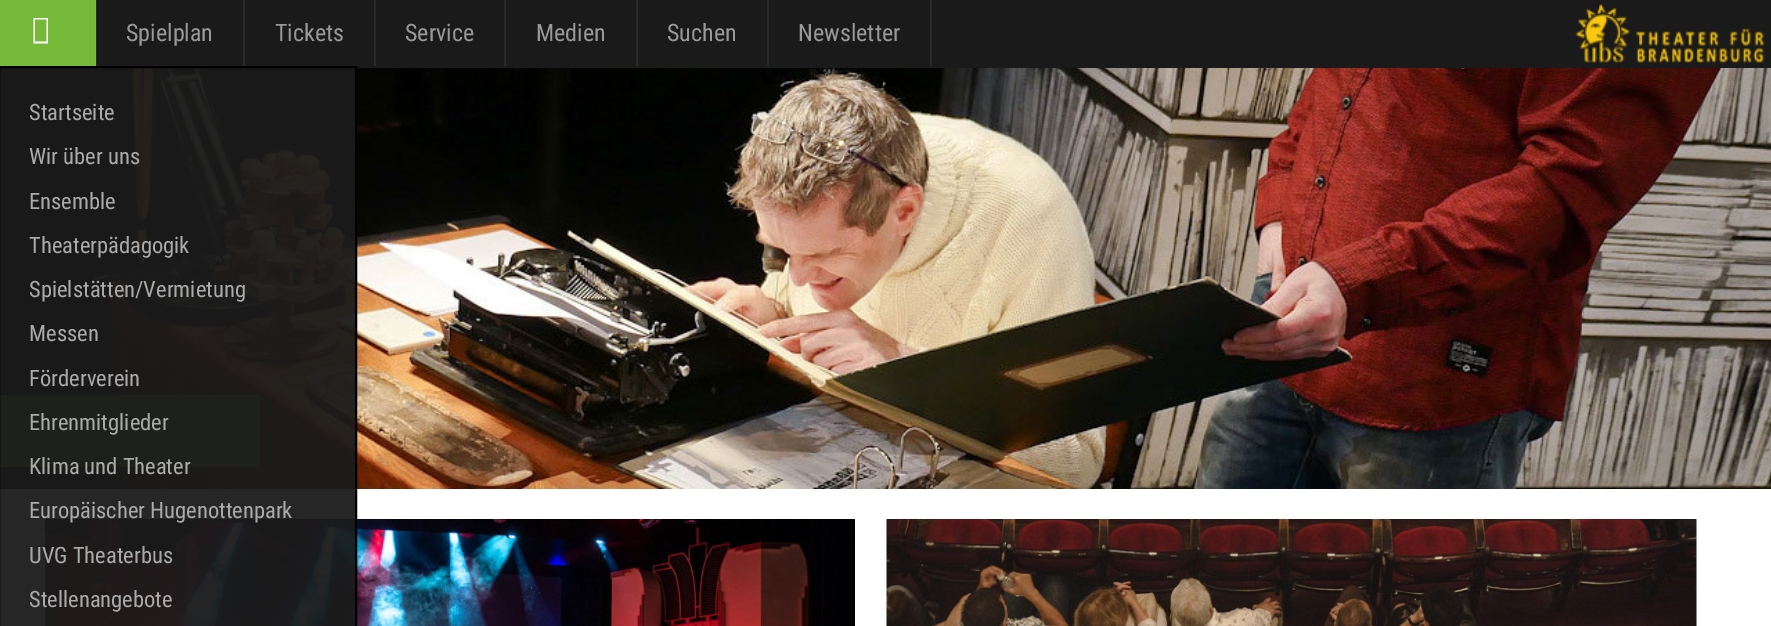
%!PS-Adobe-3.0
%%BoundingBox: 0 0 1771 626
%%LanguageLevel: 3
%%Pages: 1
%%EndComments
%%BeginProlog
/m { moveto } bind def
/l { lineto } bind def
/h { closepath } bind def
/f { fill } bind def
/S { stroke } bind def
/w { setlinewidth } bind def
/fn { [ exch dup neg 0 0 3 -1 roll 0 0 ] selectfont } def
/tx { moveto show } def
/bx { rectfill } def
/al { dup .setfillconstantalpha .setstrokeconstantalpha } def
/im { 5 dict begin { /h /w /y /x /name } { exch def } forall
  gsave x y translate w h scale
  w h 8 [w 0 0 h 0 0] name (r) file false 3 colorimage grestore end } def
%%EndProlog
%%BeginSetup
<< /PageSize [1771 626] /PageUsesTransparency true >> setpagedevice
%%EndSetup
%%Page: 1 1
0 .pushpdf14devicefilter
0 626 translate 1 -1 scale
4 setmiterlimit
1 setgray
0 0 1771 626 bx
0.102 setgray
97 0 1674 68 bx
0.165 setgray
96 0 1 66 bx
243 0 2 66 bx
/RobotoCondensed-Regular 24 fn
0.6 setgray
(Spielplan) 126 41 tx
0.165 setgray
374 0 2 66 bx
0.6 setgray
(Tickets) 275 41 tx
0.165 setgray
504 0 2 66 bx
0.6 setgray
(Service) 405 41 tx
0.165 setgray
636 0 2 66 bx
0.6 setgray
(Medien) 536 41 tx
0.165 setgray
767 0 2 66 bx
0.6 setgray
(Suchen) 667 41 tx
0.165 setgray
930 0 2 66 bx
0.6 setgray
(Newsletter) 798 41 tx
0.463 0.722 0.216 setrgbcolor
0 0 95 66 bx
0.502 0.741 0.271 setrgbcolor
95 0 1 66 bx
1 setgray
33.5 43.5 m 33.5 18 l 48 18 l 48 43.5 l h 35 41.5 m 46.5 41.5 l 46.5 19.5 l 35 19.5 l h f
(image1.raw) 0 68 1771 421 im
0.8 al
0.463 0.722 0.216 setrgbcolor
0 395 260 72 bx
1 al
(image2.raw) 45 519 810 107 im
0.95 al
0.102 setgray
-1 67 m 356 67 l 356 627 l -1 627 l h f
1 al
0 setgray
2 w
-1 67 m 356 67 l 356 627 l -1 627 l h S
/RobotoCondensed-Regular 22.5 fn
0.667 setgray
(Startseite) 29 120 tx
(Wir über uns) 29 164 tx
(Ensemble) 29 209 tx
(Theaterpädagogik) 29 253 tx
(Spielstätten/Vermietung) 29 297 tx
(Messen) 29 341 tx
(Förderverein) 29 386 tx
(Ehrenmitglieder) 29 430 tx
(Klima und Theater) 29 474 tx
(Europäischer Hugenottenpark) 29 518 tx
(UVG Theaterbus) 29 563 tx
(Stellenangebote) 29 607 tx
(image0.raw) 1575 4 190 59 im
(image3.raw) 886 519 811 107 im
.poppdf14devicefilter showpage
%%EOF
